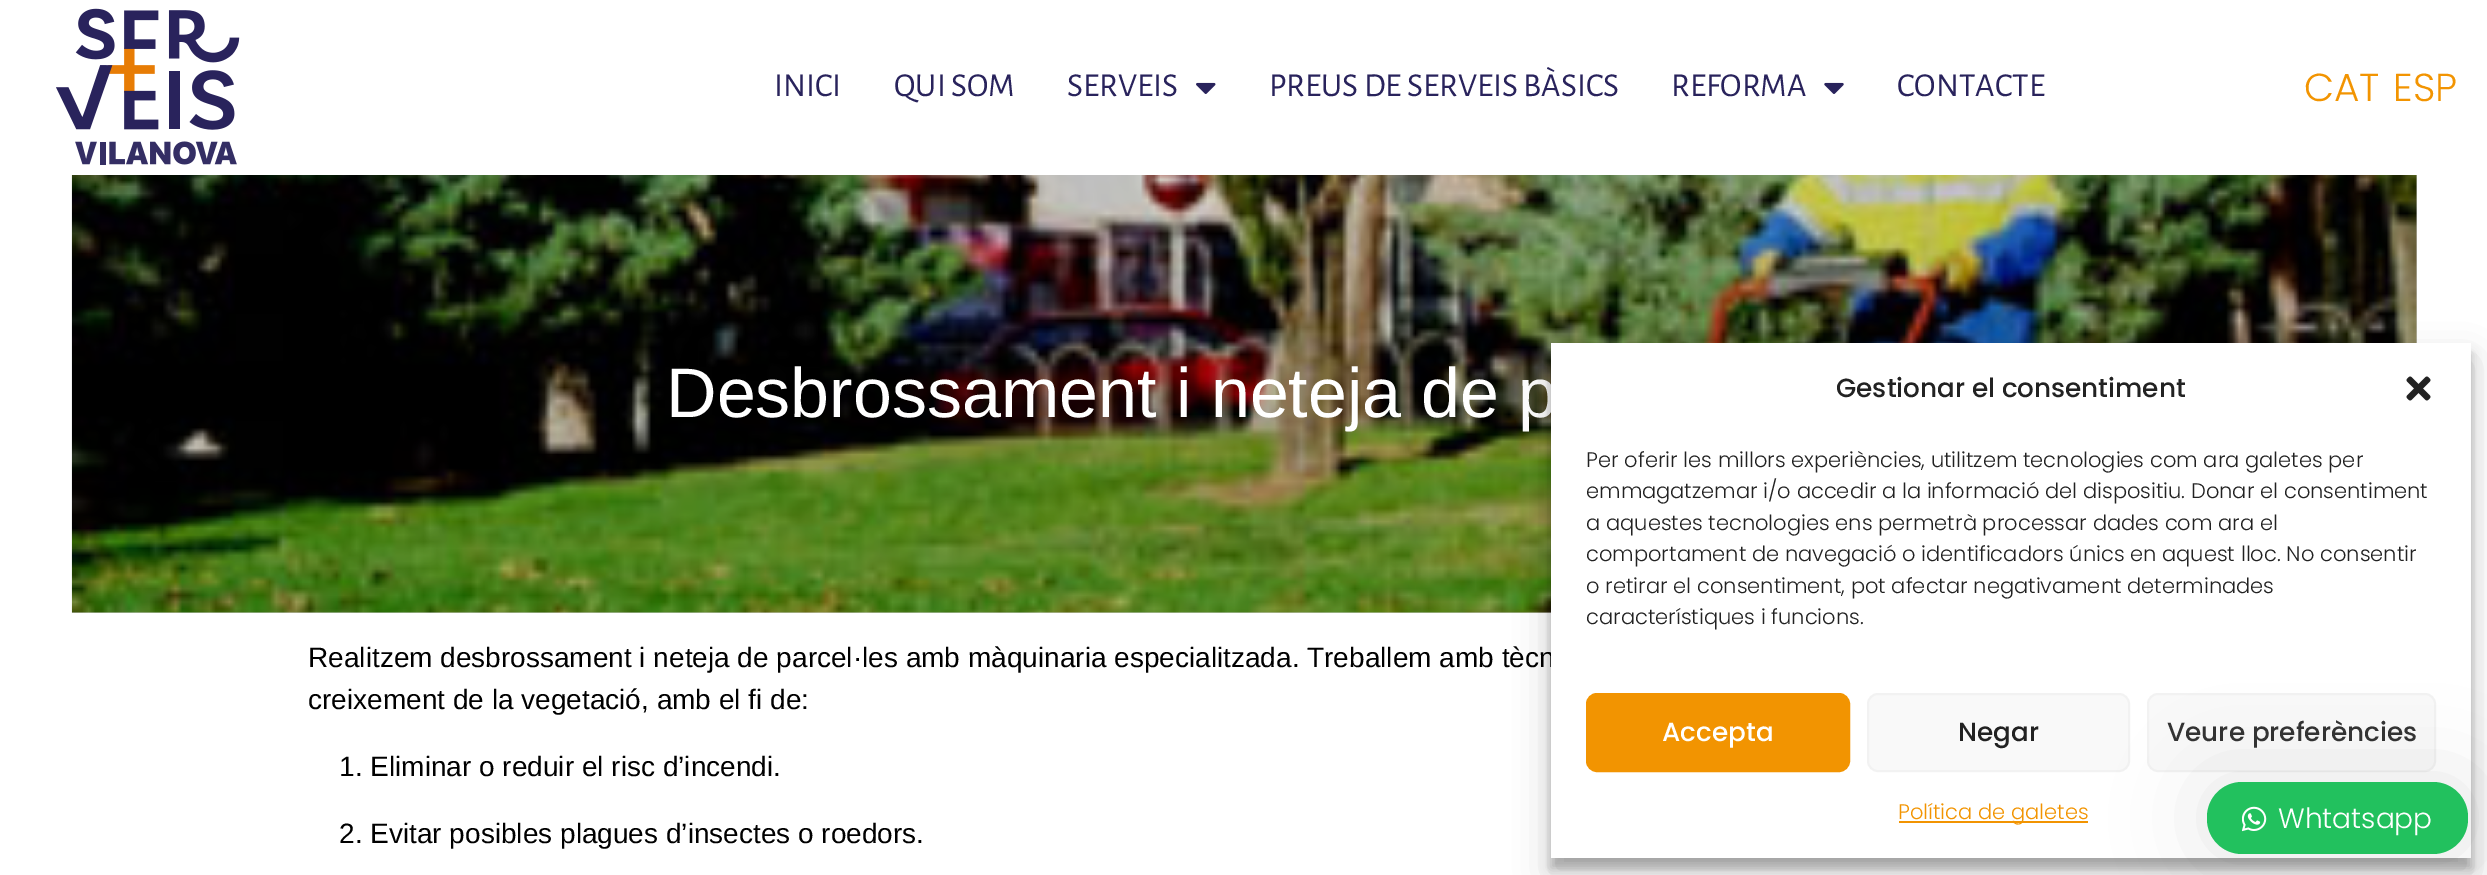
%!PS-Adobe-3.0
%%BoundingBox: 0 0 2487 875
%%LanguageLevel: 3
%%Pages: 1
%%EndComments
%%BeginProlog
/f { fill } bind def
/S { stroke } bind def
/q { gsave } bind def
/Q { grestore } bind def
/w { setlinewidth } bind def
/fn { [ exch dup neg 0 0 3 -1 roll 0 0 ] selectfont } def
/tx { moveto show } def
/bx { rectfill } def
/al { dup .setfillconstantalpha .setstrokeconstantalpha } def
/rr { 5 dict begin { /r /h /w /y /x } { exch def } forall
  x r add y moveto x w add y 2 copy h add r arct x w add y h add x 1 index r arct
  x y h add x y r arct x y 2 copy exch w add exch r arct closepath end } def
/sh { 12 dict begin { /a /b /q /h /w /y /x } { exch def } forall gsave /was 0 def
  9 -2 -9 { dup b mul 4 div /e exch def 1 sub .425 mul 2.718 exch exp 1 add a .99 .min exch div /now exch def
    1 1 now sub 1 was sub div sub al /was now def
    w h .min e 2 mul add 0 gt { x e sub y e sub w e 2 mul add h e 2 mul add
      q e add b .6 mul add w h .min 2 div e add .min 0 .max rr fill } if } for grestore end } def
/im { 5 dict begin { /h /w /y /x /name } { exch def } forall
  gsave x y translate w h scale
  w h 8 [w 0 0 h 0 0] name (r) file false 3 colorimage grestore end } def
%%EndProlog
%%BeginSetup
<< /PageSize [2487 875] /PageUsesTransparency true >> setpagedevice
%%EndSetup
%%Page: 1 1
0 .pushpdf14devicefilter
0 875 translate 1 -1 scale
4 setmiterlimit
1 setgray
0 0 2487 875 bx
0.82 setgray
72 175 2345 438 bx
(image0.raw) 56 8 184 157 im
/AlegreyaSans-Regular 33.6 fn
0.161 0.137 0.361 setrgbcolor
(INICI) 774 96 tx
(QUI SOM) 894 96 tx
(SERVEIS) 1067 96 tx
(image1.raw) 1196 82 20 12 im
(PREUS DE SERVEIS BÀSICS) 1269 96 tx
(REFORMA) 1671 96 tx
(image2.raw) 1824 82 20 12 im
(CONTACTE) 1897 96 tx
/Poppins-Light 39 fn
0.949 0.58 0.004 setrgbcolor
(CAT) 2304 101 tx
(ESP) 2393 101 tx
(image3.raw) 71 175 2346 438 im
/LiberationSans-Regular 70 fn
1 setgray
(Desbrossament i neteja de p) 666 417 tx
/LiberationSans-Regular 28 fn
0 setgray
(Realitzem desbrossament i neteja de parcel·les amb màquinaria especialitzada. Treballem amb tècn) 308 667 tx
(creixement de la vegetació, amb el fi de:) 308 709 tx
(1. Eliminar o reduir el risc d’incendi.) 339 776 tx
(2. Evitar posibles plagues d’insectes o roedors.) 339 843 tx
1551 354 920 514 0 5 0.23 sh
1551 361 920 514 0 17.5 0.19 sh
1 setgray
1551 343 920 515 bx
/Poppins-Medium 26.25 fn
0.133 setgray
(Gestionar el consentiment) 1836 397 tx
(image4.raw) 2406 376 25 25 im
/Poppins-Light 21 fn
(Per oferir les millors experiències, utilitzem tecnologies com ara galetes per) 1586 467 tx
(emmagatzemar i/o accedir a la informació del dispositiu. Donar el consentiment) 1586 498 tx
(a aquestes tecnologies ens permetrà processar dades com ara el) 1586 530 tx
(comportament de navegació o identificadors únics en aquest lloc. No consentir) 1586 561 tx
(o retirar el consentiment, pot afectar negativament determinades) 1586 593 tx
(característiques i funcions.) 1586 624 tx
0.949 0.58 0.004 setrgbcolor
1587 694 262 77 10 rr q f Q
2 w
S
/Poppins-Medium 26.25 fn
1 setgray
(Accepta) 1662 741 tx
0.976 setgray
1868 694 261 77 10 rr q f Q
0.949 setgray
S
0.133 setgray
(Negar) 1958 741 tx
0.976 setgray
2148 694 287 77 10 rr q f Q
0.949 setgray
S
0.2 setgray
(Veure preferències) 2167 741 tx
0.949 0.58 0.004 setrgbcolor
1899 821 189 2 bx
/Poppins-Light 21 fn
(Política de galetes) 1898 819 tx
0 setgray
2207 782 261 72 35 44 0.1 sh
0.133 0.757 0.369 setrgbcolor
2207 782 261 72 35 rr f
(image5.raw) 2242 806 25 26 im
/Poppins-Light 28 fn
1 setgray
(Whtatsapp) 2278 828 tx
.poppdf14devicefilter showpage
%%EOF
